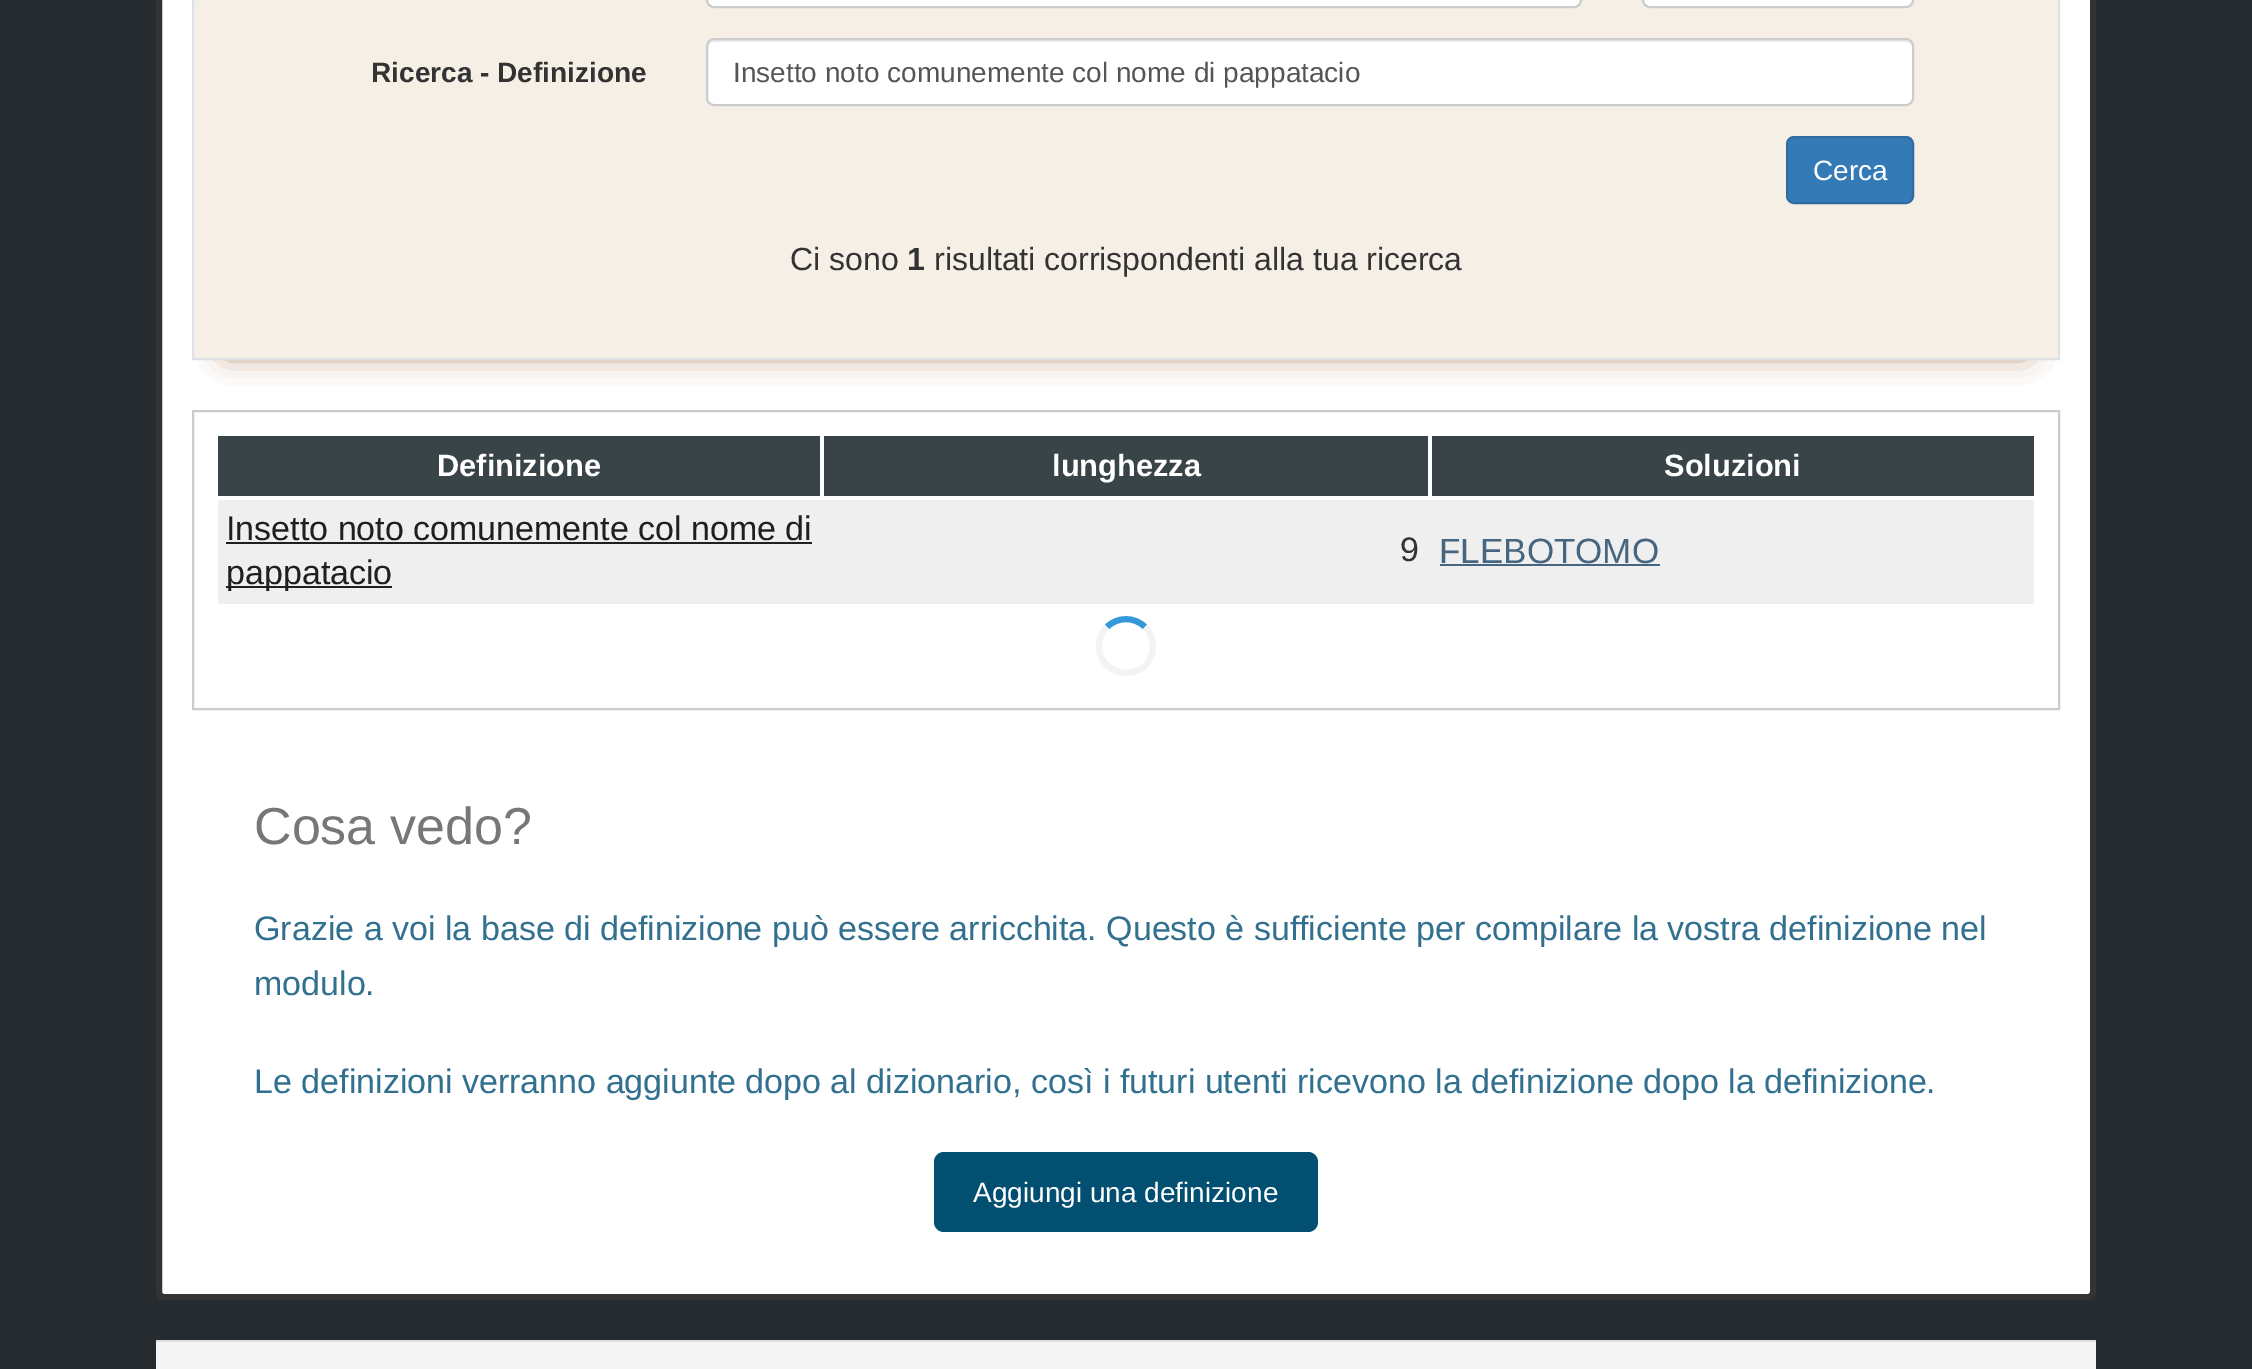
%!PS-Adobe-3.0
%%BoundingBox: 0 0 2252 1369
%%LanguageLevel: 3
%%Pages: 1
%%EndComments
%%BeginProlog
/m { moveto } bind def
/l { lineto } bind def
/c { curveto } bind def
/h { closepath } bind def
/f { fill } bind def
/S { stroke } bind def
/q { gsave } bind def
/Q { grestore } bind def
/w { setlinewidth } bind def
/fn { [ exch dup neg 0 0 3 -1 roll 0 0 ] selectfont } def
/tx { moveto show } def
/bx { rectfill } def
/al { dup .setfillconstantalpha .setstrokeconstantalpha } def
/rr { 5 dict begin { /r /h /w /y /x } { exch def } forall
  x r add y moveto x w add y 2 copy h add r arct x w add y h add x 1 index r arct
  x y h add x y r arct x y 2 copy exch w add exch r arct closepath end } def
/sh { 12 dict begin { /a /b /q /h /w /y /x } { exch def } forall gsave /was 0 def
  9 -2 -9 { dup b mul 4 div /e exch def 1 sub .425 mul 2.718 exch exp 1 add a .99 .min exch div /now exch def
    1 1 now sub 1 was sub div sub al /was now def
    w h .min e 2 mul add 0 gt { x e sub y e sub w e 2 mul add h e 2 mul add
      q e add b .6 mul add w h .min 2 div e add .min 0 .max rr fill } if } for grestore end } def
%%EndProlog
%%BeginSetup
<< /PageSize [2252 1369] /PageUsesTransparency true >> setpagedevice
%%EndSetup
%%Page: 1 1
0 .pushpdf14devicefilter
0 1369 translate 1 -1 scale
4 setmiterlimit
0.149 0.169 0.188 setrgbcolor
0 0 2252 1369 bx
1 setgray
159 -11 1934 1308 5 rr q f Q
0.2 setgray
6 w
S
0.6 0.4 0.2 setrgbcolor
226 -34 1800 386 0 15 1 sh
0.965 0.937 0.902 setrgbcolor
193 -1 m 2059 -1 l 2059 359 l 193 359 l h q f Q
0.871 0.886 0.902 setrgbcolor
2 w
S
1 setgray
707 -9 874 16 7 rr q f Q
0.8 setgray
S
1 setgray
1643 -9 270 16 7 rr q f Q
0.8 setgray
S
/LiberationSans-Bold 28 fn
0.2 setgray
(Ricerca - Definizione) 371 82 tx
1 setgray
706 38 1208 68 8 rr f
0.925 setgray
714 42 m 1906 42 l 1909 42 1912 45 1912 48 c 1912 46 l 1912 43 1909 40 1906 40 c 714 40 l 711 40 708 43 708 46 c 708 48 l 708 45 711 42 714 42 c h f
0.8 setgray
707 39 1206 66 7 rr S
/LiberationSans-Regular 28 fn
0.333 setgray
(Insetto noto comunemente col nome di pappatacio) 733 82 tx
0.2 0.478 0.718 setrgbcolor
1787 137 126 66 7 rr q f Q
0.18 0.427 0.643 setrgbcolor
S
1 setgray
(Cerca) 1813 180 tx
/LiberationSans-Regular 32 fn
0.2 setgray
(Ci sono) 790 270 tx
/LiberationSans-Bold 32 fn
(1) 907 270 tx
/LiberationSans-Regular 32 fn
(risultati corrispondenti alla tua ricerca) 934 270 tx
0.8 setgray
193 411 1866 298 rectstroke
0.224 0.267 0.286 setrgbcolor
218 436 602 60 bx
/LiberationSans-Bold 30.75 fn
1 setgray
(Definizione) 437 476 tx
0.224 0.267 0.286 setrgbcolor
824 436 604 60 bx
1 setgray
(lunghezza) 1052 476 tx
0.224 0.267 0.286 setrgbcolor
1432 436 602 60 bx
1 setgray
(Soluzioni) 1664 476 tx
0.937 setgray
218 500 1816 104 bx
/LiberationSans-Regular 34 fn
0.122 setgray
(Insetto noto comunemente col nome di) 226 540 tx
226 542 586 2 bx
226 586 166 2 bx
(pappatacio) 226 584 tx
0.2 setgray
(9) 1400 561 tx
/LiberationSans-Regular 35 fn
0.275 0.396 0.502 setrgbcolor
(FLEBOTOMO) 1439 563 tx
1440 564 220 2 bx
0.204 0.596 0.859 setrgbcolor
6 w
1107 627 m 1117.5 616.5 1134.5 616.5 1145 627 c S
0.953 setgray
1145 627 m 1151.5 633 1154 642.5 1152.5 651.5 c 1146 683 1099 678 1099 646 c 1099 639 1102 632 1107 627 c S
/LiberationSans-Regular 52 fn
0.467 setgray
(Cosa vedo?) 254 844 tx
/LiberationSans-Regular 34 fn
0.192 0.439 0.561 setrgbcolor
(Grazie a voi la base di definizione può essere arricchita. Questo è sufficiente per compilare la vostra definizione nel) 254 940 tx
(modulo.) 254 995 tx
(Le definizioni verranno aggiunte dopo al dizionario, così i futuri utenti ricevono la definizione dopo la definizione.) 254 1093 tx
0.012 0.31 0.443 setrgbcolor
934 1152 384 80 10 rr f
/LiberationSans-Regular 28 fn
1 setgray
(Aggiungi una definizione) 973 1202 tx
0.961 setgray
156 1342 1940 27 bx
0.867 setgray
156 1340 1940 2 bx
.poppdf14devicefilter showpage
%%EOF
